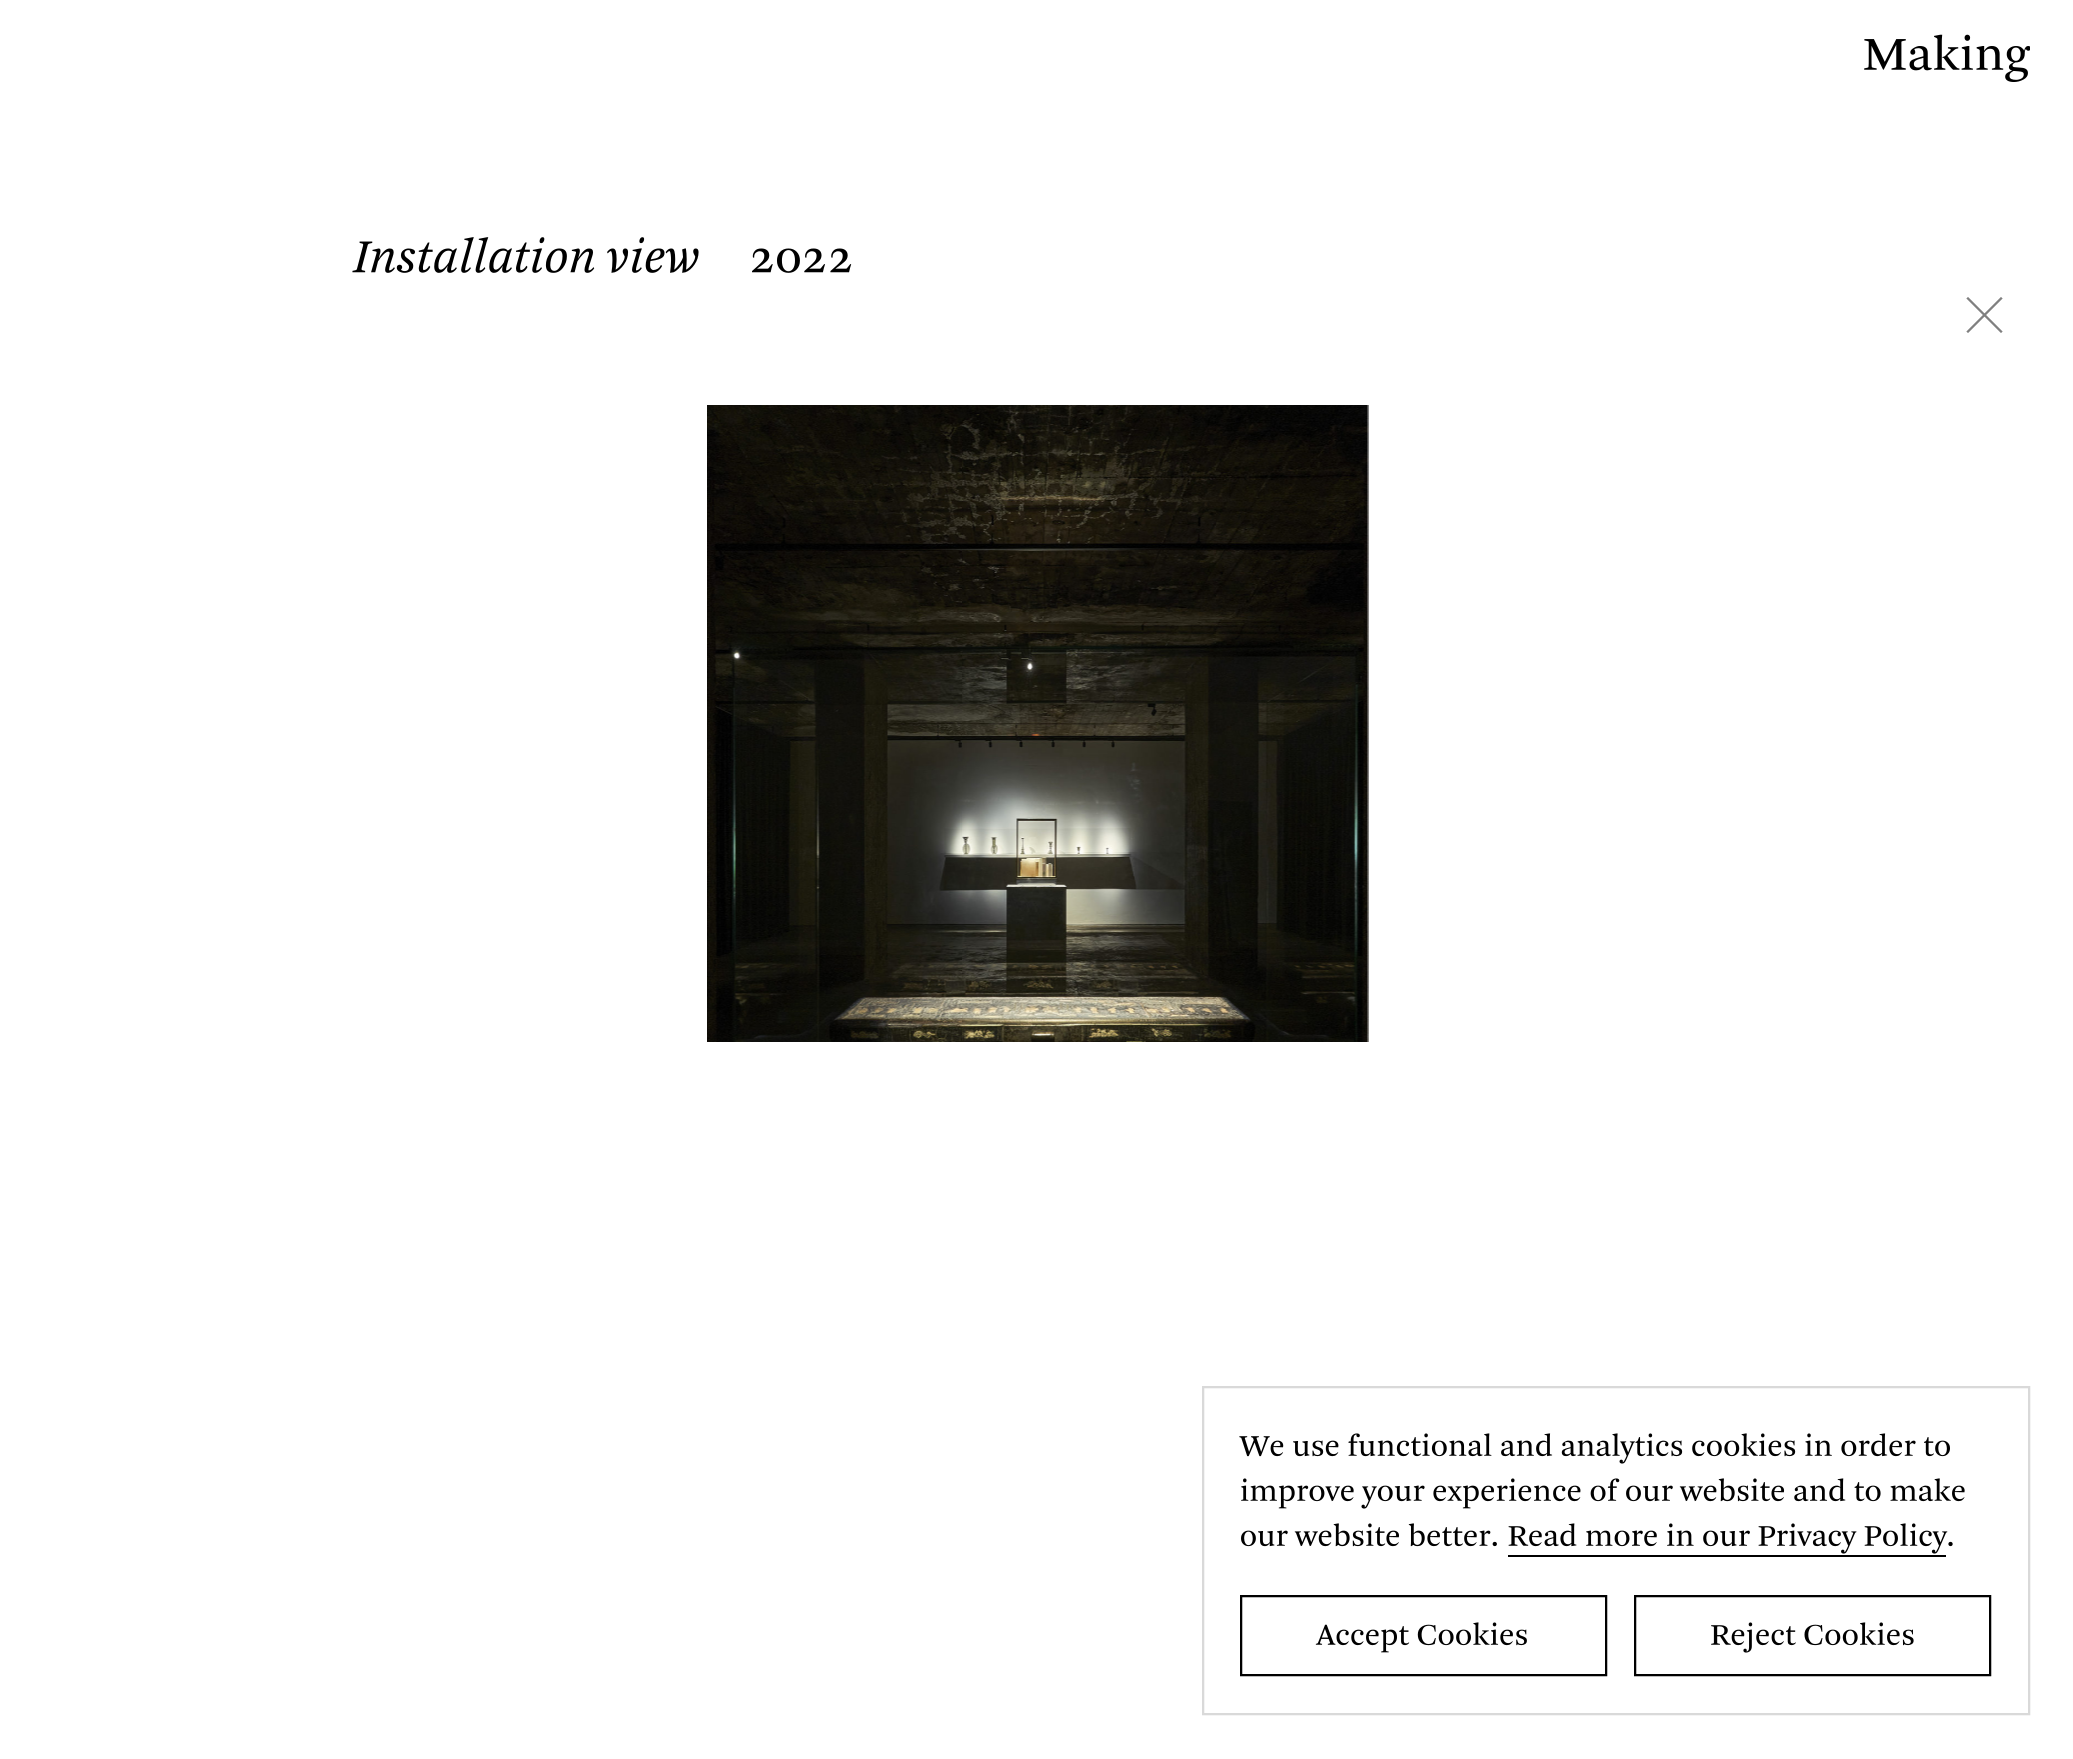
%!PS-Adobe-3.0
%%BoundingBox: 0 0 2073 1759
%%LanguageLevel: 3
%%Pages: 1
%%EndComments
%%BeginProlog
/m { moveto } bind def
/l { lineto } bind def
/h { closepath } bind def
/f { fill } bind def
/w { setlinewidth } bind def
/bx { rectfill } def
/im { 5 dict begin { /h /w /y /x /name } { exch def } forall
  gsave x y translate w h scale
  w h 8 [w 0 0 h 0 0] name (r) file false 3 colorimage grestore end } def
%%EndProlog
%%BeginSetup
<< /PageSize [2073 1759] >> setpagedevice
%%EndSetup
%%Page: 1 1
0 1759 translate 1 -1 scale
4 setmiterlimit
1 setgray
0 0 2073 1759 bx
(image0.raw) 1864 34 166 48 im
(image1.raw) 352 237 347 36 im
(image2.raw) 752 248 100 25 im
0.502 setgray
2002.5 331.5 m 1986 315 l 2002.5 298.5 l 2001 297 l 1984.5 313.5 l 1968 297 l 1966.5 298.5 l 1983 315 l 1966.5 331.5 l 1968 333 l 1984.5 316.5 l 2001 333 l h f
(image3.raw) 707 405 662 637 im
0.851 setgray
2 w
1203 1387 826 327 rectstroke
(image4.raw) 1239 1433 711 31 im
(image5.raw) 1241 1478 724 31 im
(image6.raw) 1241 1523 256 24 im
(image7.raw) 1508 1523 440 31 im
(image8.raw) 1948 1541 5 6 im
0 setgray
1508 1555 438 2 bx
1241 1596 365 79 rectstroke
(image9.raw) 1315 1622 212 31 im
1635 1596 355 79 rectstroke
(image10.raw) 1711 1622 203 31 im
showpage
%%EOF
